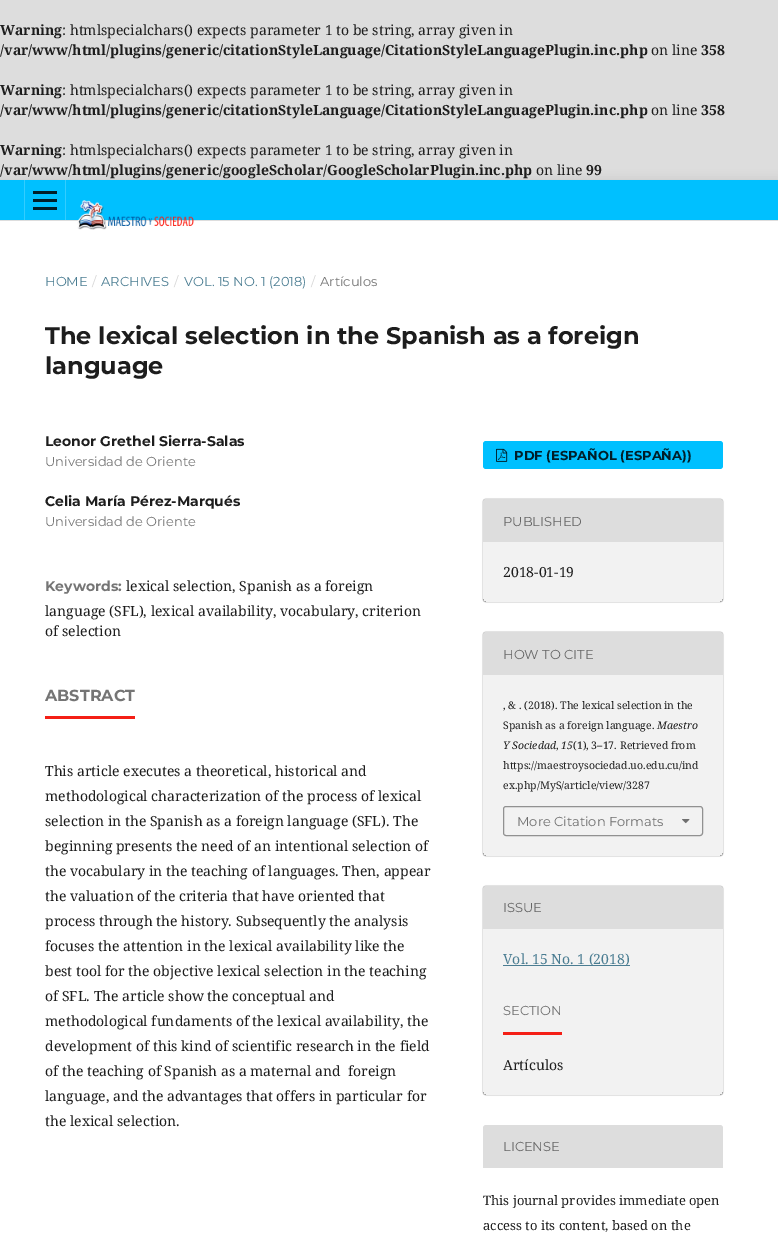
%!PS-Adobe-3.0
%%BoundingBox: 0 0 778 1234
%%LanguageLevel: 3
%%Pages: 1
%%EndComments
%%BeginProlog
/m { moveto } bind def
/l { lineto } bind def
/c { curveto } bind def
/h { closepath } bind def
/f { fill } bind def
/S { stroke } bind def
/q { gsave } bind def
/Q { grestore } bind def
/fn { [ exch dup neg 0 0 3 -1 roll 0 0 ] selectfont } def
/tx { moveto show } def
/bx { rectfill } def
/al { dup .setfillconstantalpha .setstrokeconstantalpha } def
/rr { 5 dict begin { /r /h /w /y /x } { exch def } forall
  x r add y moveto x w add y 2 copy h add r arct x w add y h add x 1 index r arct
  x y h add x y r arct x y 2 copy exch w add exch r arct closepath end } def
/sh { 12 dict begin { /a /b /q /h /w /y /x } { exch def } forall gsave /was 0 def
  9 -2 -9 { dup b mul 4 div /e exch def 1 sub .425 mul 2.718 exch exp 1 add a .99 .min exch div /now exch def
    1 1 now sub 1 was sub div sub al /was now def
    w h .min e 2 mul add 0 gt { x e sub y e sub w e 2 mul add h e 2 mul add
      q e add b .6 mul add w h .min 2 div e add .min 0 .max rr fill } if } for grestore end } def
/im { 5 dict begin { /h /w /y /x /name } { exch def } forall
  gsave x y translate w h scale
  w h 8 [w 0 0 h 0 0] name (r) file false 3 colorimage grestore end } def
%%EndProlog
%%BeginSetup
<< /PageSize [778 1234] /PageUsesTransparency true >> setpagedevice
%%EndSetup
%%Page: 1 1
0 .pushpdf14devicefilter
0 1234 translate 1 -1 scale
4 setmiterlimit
0.867 setgray
0 0 778 1234 bx
/NotoSerif-Bold 14 fn
0.114 setgray
(Warning) 0 35 tx
/NotoSerif-Regular 14 fn
(: htmlspecialchars\(\) expects parameter 1 to be string, array given in) 62 35 tx
/NotoSerif-Bold 14 fn
(/var/www/html/plugins/generic/citationStyleLanguage/CitationStyleLanguagePlugin.inc.php) 0 55 tx
/NotoSerif-Regular 14 fn
(on line) 651 55 tx
/NotoSerif-Bold 14 fn
(358) 701 55 tx
(Warning) 0 95 tx
/NotoSerif-Regular 14 fn
(: htmlspecialchars\(\) expects parameter 1 to be string, array given in) 62 95 tx
/NotoSerif-Bold 14 fn
(/var/www/html/plugins/generic/citationStyleLanguage/CitationStyleLanguagePlugin.inc.php) 0 115 tx
/NotoSerif-Regular 14 fn
(on line) 651 115 tx
/NotoSerif-Bold 14 fn
(358) 701 115 tx
(Warning) 0 155 tx
/NotoSerif-Regular 14 fn
(: htmlspecialchars\(\) expects parameter 1 to be string, array given in) 62 155 tx
0 setgray
0 180 778 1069 0 5 0.1 sh
/NotoSerif-Bold 14 fn
0.114 setgray
(/var/www/html/plugins/generic/googleScholar/GoogleScholarPlugin.inc.php) 0 175 tx
/NotoSerif-Regular 14 fn
(on line) 536 175 tx
/NotoSerif-Bold 14 fn
(99) 586 175 tx
1 setgray
0 221 778 1013 bx
0 0.753 1 setrgbcolor
0 180 778 40 bx
0.867 setgray
0 220 778 1 bx
0.2 0.804 1 setrgbcolor
24 180 1 40 bx
65 180 1 40 bx
0 0.122 0.161 setrgbcolor
33 207 24 3 bx
33 191 24 3 bx
33 199 24 3 bx
(image0.raw) 77 200 117 30 im
/Montserrat-Regular 13 fn
0.294 0.49 0.573 setrgbcolor
(HOME) 45 286 tx
0.839 setgray
(/) 92 286 tx
0.294 0.49 0.573 setrgbcolor
(ARCHIVES) 101 286 tx
0.839 setgray
(/) 174 286 tx
0.294 0.49 0.573 setrgbcolor
(VOL. 15 NO. 1 \(2018\)) 184 286 tx
0.839 setgray
(/) 311 286 tx
0.459 setgray
(Artículos) 320 286 tx
/Montserrat-Bold 24 fn
0.114 setgray
(The lexical selection in the Spanish as a foreign) 45 344 tx
(language) 45 374 tx
/Montserrat-Bold 14 fn
(Leonor Grethel Sierra-Salas) 45 446 tx
/Montserrat-Regular 13 fn
0.459 setgray
(Universidad de Oriente) 45 466 tx
/Montserrat-Bold 14 fn
0.114 setgray
(Celia María Pérez-Marqués) 45 506 tx
/Montserrat-Regular 13 fn
0.459 setgray
(Universidad de Oriente) 45 526 tx
/Montserrat-Bold 14 fn
(Keywords:) 45 591 tx
/NotoSerif-Regular 14 fn
0.114 setgray
(lexical selection, Spanish as a foreign) 126 591 tx
(language \(SFL\), lexical availability, vocabulary, criterion) 45 616 tx
(of selection) 45 636 tx
0.957 0.122 0.086 setrgbcolor
45 716 90 3 bx
/Montserrat-Bold 16 fn
0.459 setgray
(ABSTRACT) 45 701 tx
/NotoSerif-Regular 14 fn
0.114 setgray
(This article executes a theoretical, historical and) 45 776 tx
(methodological characterization of the process of lexical) 45 801 tx
(selection in the Spanish as a foreign language \(SFL\). The) 45 826 tx
(beginning presents the need of an intentional selection of) 45 851 tx
(the vocabulary in the teaching of languages. Then, appear) 45 876 tx
(the valuation of the criteria that have oriented that) 45 901 tx
(process through the history. Subsequently the analysis) 45 926 tx
(focuses the attention in the lexical availability like the) 45 951 tx
(best tool for the objective lexical selection in the teaching) 45 976 tx
(of SFL. The article show the conceptual and) 45 1001 tx
(methodological fundaments of the lexical availability, the) 45 1026 tx
(development of this kind of scientific research in the field) 45 1051 tx
(of the teaching of Spanish as a maternal and  foreign) 45 1076 tx
(language, and the advantages that offers in particular for) 45 1101 tx
(the lexical selection.) 45 1126 tx
0 0.753 1 setrgbcolor
483 441 240 28 3 rr f
(image1.raw) 496 448 12 14 im
/Montserrat-Bold 13 fn
0 0.122 0.161 setrgbcolor
(PDF \(ESPAÑOL \(ESPAÑA\)\)) 514 460 tx
q
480 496 m 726 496 l 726 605 l 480 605 l h 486 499 m 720 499 l 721.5 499 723 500.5 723 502 c 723 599 l 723 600.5 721.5 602 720 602 c 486 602 l 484.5 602 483 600.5 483 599 c 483 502 l 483 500.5 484.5 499 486 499 c h eoclip newpath
0 setgray
483 499 240 103 3 0.5 0.4 sh
Q
0.05 al
0 setgray
483 499 240 103 bx
1 al
0.867 setgray
486 499 m 720 499 l 721.5 499 723 500.5 723 502 c 723 542 l 483 542 l 483 502 l 483 500.5 484.5 499 486 499 c h f
/Montserrat-Regular 13 fn
0.4 setgray
(PUBLISHED) 503 526 tx
/NotoSerif-Regular 14 fn
0.114 setgray
(2018-01-19) 503 577 tx
q
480 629 m 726 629 l 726 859 l 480 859 l h 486 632 m 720 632 l 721.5 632 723 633.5 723 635 c 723 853 l 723 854.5 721.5 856 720 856 c 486 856 l 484.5 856 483 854.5 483 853 c 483 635 l 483 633.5 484.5 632 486 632 c h eoclip newpath
0 setgray
483 632 240 224 3 0.5 0.4 sh
Q
0.05 al
0 setgray
483 632 240 224 bx
1 al
0.867 setgray
486 632 m 720 632 l 721.5 632 723 633.5 723 635 c 723 675 l 483 675 l 483 635 l 483 633.5 484.5 632 486 632 c h f
/Montserrat-Regular 13 fn
0.4 setgray
(HOW TO CITE) 503 659 tx
/NotoSerif-Regular 10.5 fn
0.114 setgray
(, & . \(2018\). The lexical selection in the) 503 709 tx
(Spanish as a foreign language.) 503 729 tx
/NotoSerif-Italic 10.5 fn
(Maestro) 657 729 tx
(Y Sociedad) 503 749 tx
/NotoSerif-Regular 10.5 fn
(,) 556 749 tx
/NotoSerif-Italic 10.5 fn
(15) 561 749 tx
/NotoSerif-Regular 10.5 fn
(\(1\), 3–17. Retrieved from) 573 749 tx
(https://maestroysociedad.uo.edu.cu/ind) 503 769 tx
(ex.php/MyS/article/view/3287) 503 789 tx
0.569 setgray
503.5 806.5 199 29 2.5 rr S
/Montserrat-Regular 13 fn
0.435 setgray
(More Citation Formats) 517 826 tx
(image2.raw) 682 819 8 5 im
q
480 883 m 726 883 l 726 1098 l 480 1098 l h 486 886 m 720 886 l 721.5 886 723 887.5 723 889 c 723 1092 l 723 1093.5 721.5 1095 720 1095 c 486 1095 l 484.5 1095 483 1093.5 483 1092 c 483 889 l 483 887.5 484.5 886 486 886 c h eoclip newpath
0 setgray
483 886 240 209 3 0.5 0.4 sh
Q
0.05 al
0 setgray
483 886 240 209 bx
1 al
0.867 setgray
486 886 m 720 886 l 721.5 886 723 887.5 723 889 c 723 929 l 483 929 l 483 889 l 483 887.5 484.5 886 486 886 c h f
0.4 setgray
(ISSUE) 503 912 tx
0.294 0.49 0.573 setrgbcolor
503 965 127 1 bx
/NotoSerif-Regular 14 fn
(Vol. 15 No. 1 \(2018\)) 503 964 tx
0.957 0.122 0.086 setrgbcolor
503 1032 59 3 bx
/Montserrat-Regular 13 fn
0.435 setgray
(SECTION) 503 1015 tx
/NotoSerif-Regular 14 fn
0.114 setgray
(Artículos) 503 1070 tx
0.867 setgray
486 1125 m 720 1125 l 721.5 1125 723 1126.5 723 1128 c 723 1168 l 483 1168 l 483 1128 l 483 1126.5 484.5 1125 486 1125 c h f
/Montserrat-Regular 13 fn
0.4 setgray
(LICENSE) 503 1151 tx
/NotoSerif-Regular 13 fn
0.114 setgray
(This journal provides immediate open) 483 1205 tx
(access to its content, based on the) 483 1230 tx
.poppdf14devicefilter showpage
%%EOF
